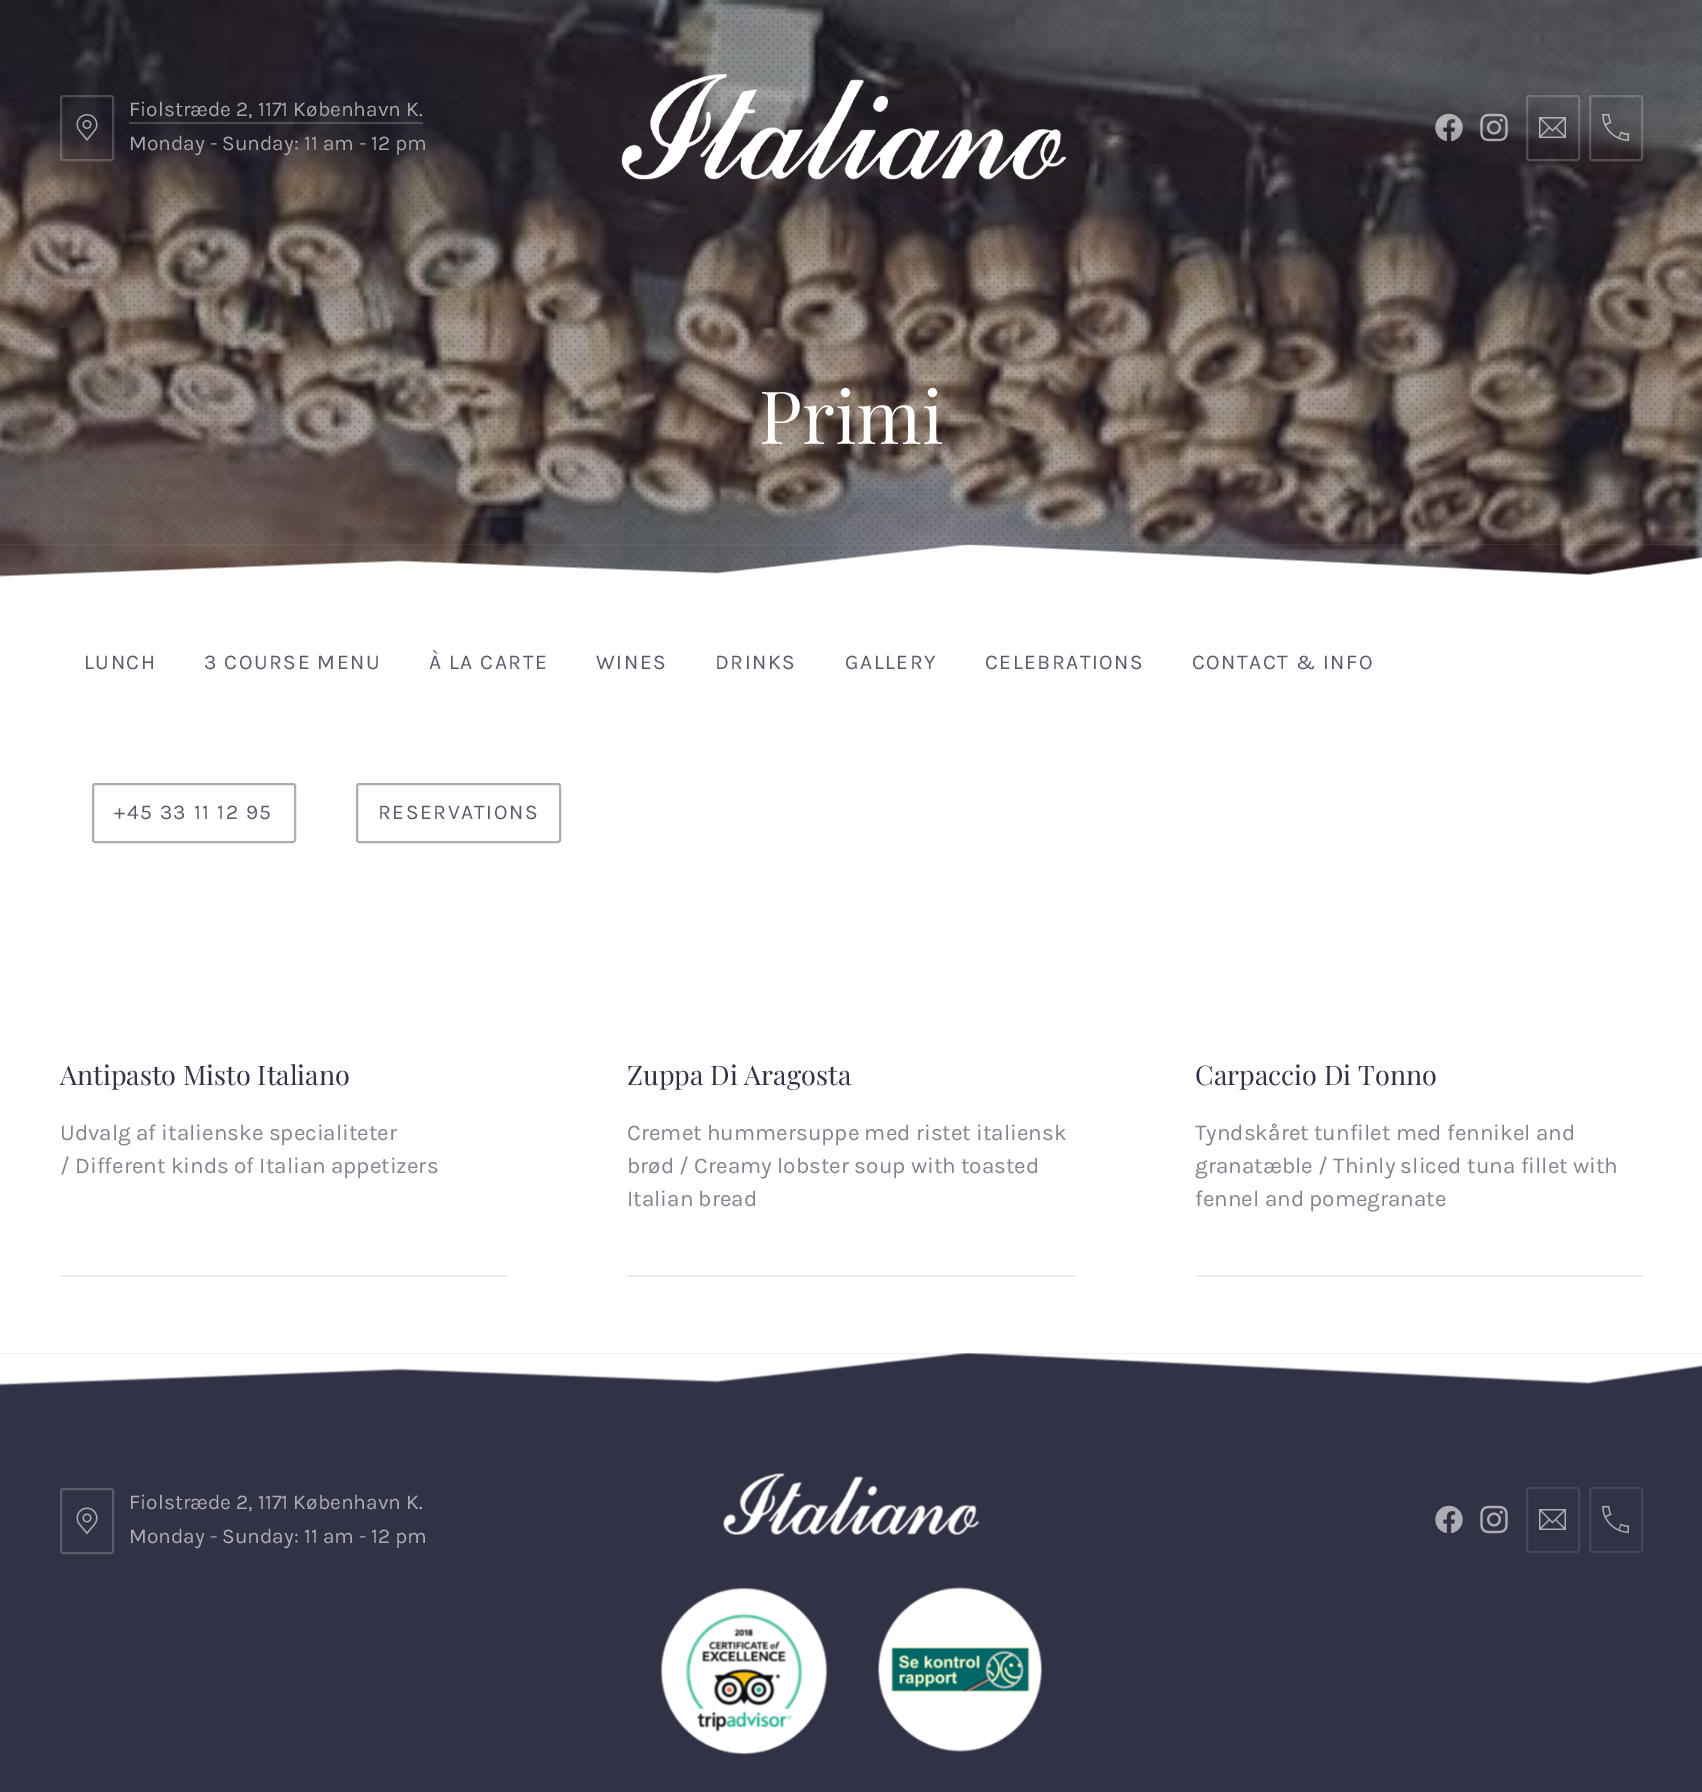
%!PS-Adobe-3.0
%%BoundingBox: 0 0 1702 1792
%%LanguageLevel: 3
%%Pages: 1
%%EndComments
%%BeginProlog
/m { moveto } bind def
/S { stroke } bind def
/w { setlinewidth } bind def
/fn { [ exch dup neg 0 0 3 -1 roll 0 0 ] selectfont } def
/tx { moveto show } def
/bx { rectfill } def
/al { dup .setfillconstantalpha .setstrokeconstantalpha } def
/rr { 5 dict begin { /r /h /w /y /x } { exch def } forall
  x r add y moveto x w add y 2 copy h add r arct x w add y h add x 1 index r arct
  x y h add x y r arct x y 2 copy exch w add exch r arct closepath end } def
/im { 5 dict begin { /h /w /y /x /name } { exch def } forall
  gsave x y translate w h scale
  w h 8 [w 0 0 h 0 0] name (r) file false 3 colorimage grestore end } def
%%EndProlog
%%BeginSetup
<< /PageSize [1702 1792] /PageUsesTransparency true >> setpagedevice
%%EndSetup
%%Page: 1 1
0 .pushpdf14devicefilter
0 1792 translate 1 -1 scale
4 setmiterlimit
1 setgray
0 0 1702 1792 bx
(image6.raw) 0 0 1702 577 im
(image7.raw) 3 3 1698 573 im
(image0.raw) 76 114 22 27 im
0.2 al
2 w
61 96 52 64 2 rr S
/Karla-Regular 21 fn
1 al
0.655 0.651 0.663 setrgbcolor
(Fiolstræde 2, 1171 København K.) 129 116 tx
0.2 al
1 setgray
129 122 294 2 bx
1 al
0.655 0.651 0.663 setrgbcolor
(Monday - Sunday: 11 am - 12 pm) 129 150 tx
(image1.raw) 621 74 445 106 im
(image2.raw) 1435 113 28 29 im
(image3.raw) 1480 113 28 29 im
0.2 al
1 setgray
1527 96 52 64 2 rr S
1 al
(image4.raw) 1539 117 27 21 im
0.2 al
1590 96 52 64 2 rr S
1 al
(image5.raw) 1602 114 27 27 im
/PlayfairDisplay-Regular 73.5 fn
(Primi) 759 444 tx
(image8.raw) 0 544 1702 44 im
/Karla-Regular 21 fn
0.357 0.357 0.42 setrgbcolor
84 669 m 1.5 0 (LUNCH) ashow
204 669 m 1.5 0 (3 COURSE MENU) ashow
429 669 m 1.5 0 (À LA CARTE) ashow
596 669 m 1.5 0 (WINES) ashow
715 669 m 1.5 0 (DRINKS) ashow
845 669 m 1.5 0 (GALLERY) ashow
985 669 m 1.5 0 (CELEBRATIONS) ashow
1192 669 m 1.5 0 (CONTACT & INFO) ashow
0.678 0.678 0.71 setrgbcolor
93 784 202 58 2 rr S
0.357 0.357 0.42 setrgbcolor
114 819 m 1.5 0 (+45 33 11 12 95) ashow
0.678 0.678 0.71 setrgbcolor
357 784 203 58 2 rr S
0.357 0.357 0.42 setrgbcolor
378 819 m 1.5 0 (RESERVATIONS) ashow
0.922 0.922 0.929 setrgbcolor
60 1275 447 2 bx
/PlayfairDisplay-Regular 27 fn
0.196 0.196 0.275 setrgbcolor
(Antipasto Misto Italiano) 60 1085 tx
/Karla-Regular 22.5 fn
0.518 0.518 0.565 setrgbcolor
(Udvalg af italienske specialiteter) 60 1140 tx
(/ Different kinds of Italian appetizers) 60 1173 tx
0.922 0.922 0.929 setrgbcolor
627 1275 449 2 bx
/PlayfairDisplay-Regular 27 fn
0.196 0.196 0.275 setrgbcolor
(Zuppa Di Aragosta) 627 1085 tx
/Karla-Regular 22.5 fn
0.518 0.518 0.565 setrgbcolor
(Cremet hummersuppe med ristet italiensk) 627 1140 tx
(brød / Creamy lobster soup with toasted) 627 1173 tx
(Italian bread) 627 1206 tx
0.922 0.922 0.929 setrgbcolor
1196 1275 447 2 bx
/PlayfairDisplay-Regular 27 fn
0.196 0.196 0.275 setrgbcolor
(Carpaccio Di Tonno) 1195 1085 tx
/Karla-Regular 22.5 fn
0.518 0.518 0.565 setrgbcolor
(Tyndskåret tunfilet med fennikel and) 1195 1140 tx
(granatæble / Thinly sliced tuna fillet with) 1195 1173 tx
(fennel and pomegranate) 1195 1206 tx
0.196 0.196 0.275 setrgbcolor
0 1397 1702 395 bx
(image9.raw) 0 1353 1702 44 im
(image10.raw) 76 1507 22 28 im
0.357 0.357 0.42 setrgbcolor
61 1489 52 64 2 rr S
/Karla-Regular 21 fn
0.678 0.678 0.71 setrgbcolor
(Fiolstræde 2, 1171 København K.) 129 1509 tx
(Monday - Sunday: 11 am - 12 pm) 129 1543 tx
(image11.raw) 723 1473 257 62 im
(image12.raw) 660 1587 168 168 im
(image13.raw) 878 1587 164 165 im
(image14.raw) 1435 1505 28 29 im
(image15.raw) 1480 1505 28 29 im
0.278 0.278 0.349 setrgbcolor
1527 1488 52 64 2 rr S
(image16.raw) 1539 1509 27 21 im
1590 1488 52 64 2 rr S
(image17.raw) 1602 1506 27 27 im
.poppdf14devicefilter showpage
%%EOF
